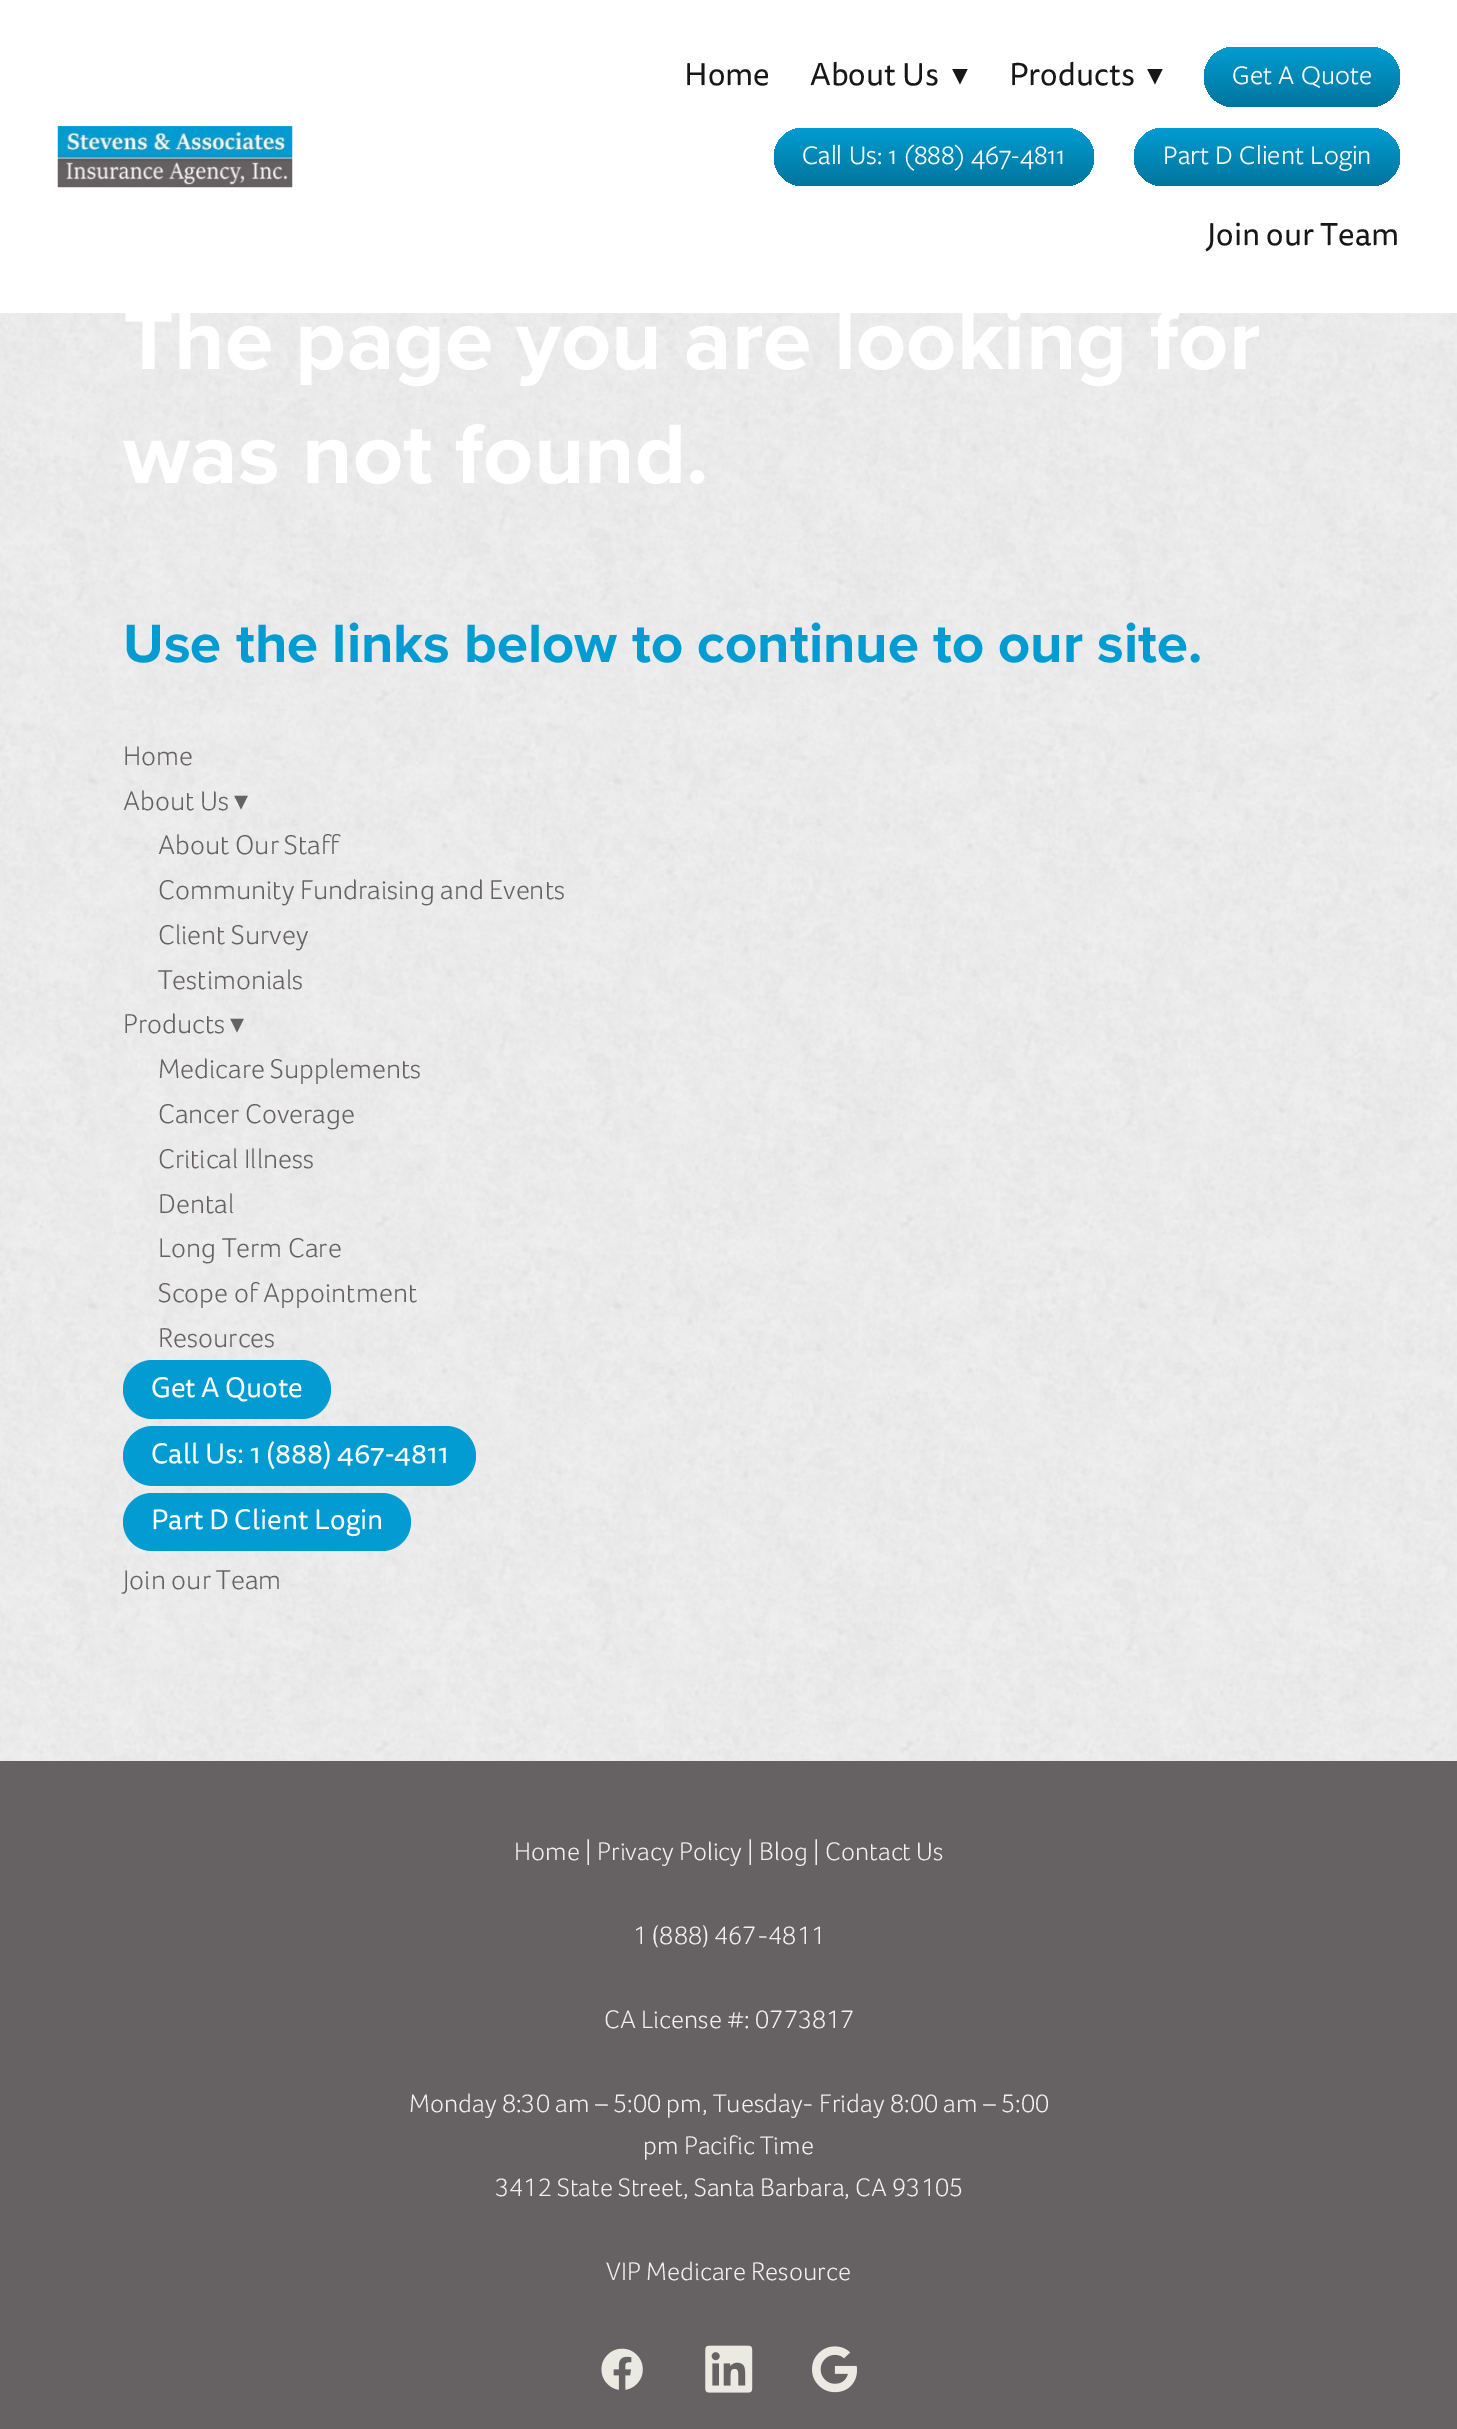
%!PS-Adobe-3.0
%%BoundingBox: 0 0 1457 2429
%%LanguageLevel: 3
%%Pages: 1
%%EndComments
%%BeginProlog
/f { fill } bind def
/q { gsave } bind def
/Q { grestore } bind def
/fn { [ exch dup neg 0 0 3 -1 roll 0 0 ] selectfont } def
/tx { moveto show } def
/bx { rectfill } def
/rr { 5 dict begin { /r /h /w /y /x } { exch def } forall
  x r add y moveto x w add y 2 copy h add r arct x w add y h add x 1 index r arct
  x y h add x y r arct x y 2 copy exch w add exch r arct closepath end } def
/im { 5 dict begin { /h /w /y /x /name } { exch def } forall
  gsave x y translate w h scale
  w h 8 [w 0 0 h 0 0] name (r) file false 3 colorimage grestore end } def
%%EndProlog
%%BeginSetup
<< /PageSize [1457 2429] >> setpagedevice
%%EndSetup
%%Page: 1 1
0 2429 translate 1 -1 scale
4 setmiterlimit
1 setgray
0 0 1457 2429 bx
(image0.raw) 0 313 1457 1448 im
(image1.raw) 57 126 236 62 im
/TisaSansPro-Regular 31.5 fn
0.09 setgray
(Home) 684 85 tx
(About Us) 810 85 tx
/DejaVuSans-Regular 31.5 fn
(▾) 952 85 tx
/TisaSansPro-Regular 31.5 fn
(Products) 1009 85 tx
/DejaVuSans-Regular 31.5 fn
(▾) 1147 85 tx
q 1204 47 196 60 30 rr clip newpath
<< /ShadingType 2 /ColorSpace /DeviceRGB /Coords [1302 47 1302 107] /Extend [true true] /Function << /FunctionType 2 /Domain [0 1] /C0 [0.008 0.612 0.824] /C1 [0.004 0.459 0.616] /N 1 >> >> shfill Q
/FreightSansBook-Regular 28 fn
1 setgray
(Get A Quote) 1232 84 tx
q 774 128 320 58 29 rr clip newpath
<< /ShadingType 2 /ColorSpace /DeviceRGB /Coords [934 128 934 186] /Extend [true true] /Function << /FunctionType 2 /Domain [0 1] /C0 [0.008 0.612 0.824] /C1 [0.004 0.459 0.616] /N 1 >> >> shfill Q
(Call Us: 1 \(888\) 467-4811) 802 164 tx
q 1134 128 266 58 29 rr clip newpath
<< /ShadingType 2 /ColorSpace /DeviceRGB /Coords [1267 128 1267 186] /Extend [true true] /Function << /FunctionType 2 /Domain [0 1] /C0 [0.008 0.612 0.824] /C1 [0.004 0.459 0.616] /N 1 >> >> shfill Q
(Part D Client Login) 1163 164 tx
/TisaSansPro-Regular 31.5 fn
0.09 setgray
(Join our Team) 1206 245 tx
/ProximaNova-Bold 87.5 fn
1 setgray
(The page you are looking for) 123 369 tx
(was not found.) 123 483 tx
/ProximaNova-Bold 56 fn
0.008 0.612 0.824 setrgbcolor
(Use the links below to continue to our site.) 123 662 tx
/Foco-Light 28 fn
0.4 0.384 0.388 setrgbcolor
(Home) 123 765 tx
(About Us) 123 810 tx
/DejaVuSans-Regular 28 fn
(▾) 234 810 tx
/Foco-Light 28 fn
(About Our Staff) 158 854 tx
(Community Fundraising and Events) 158 899 tx
(Client Survey) 158 944 tx
(Testimonials) 158 989 tx
(Products) 123 1033 tx
/DejaVuSans-Regular 28 fn
(▾) 230 1033 tx
/Foco-Light 28 fn
(Medicare Supplements) 158 1078 tx
(Cancer Coverage) 158 1123 tx
(Critical Illness) 158 1168 tx
(Dental) 158 1213 tx
(Long Term Care) 158 1257 tx
(Scope of Appointment) 158 1302 tx
(Resources) 158 1347 tx
0.008 0.612 0.824 setrgbcolor
123 1360 208 59 29.5 rr f
/TisaSansPro-Regular 28 fn
1 setgray
(Get A Quote) 151 1397 tx
0.008 0.612 0.824 setrgbcolor
123 1426 353 60 30 rr f
1 setgray
(Call Us: 1 \(888\) 467-4811) 151 1463 tx
0.008 0.612 0.824 setrgbcolor
123 1493 288 58 29 rr f
1 setgray
(Part D Client Login) 151 1529 tx
/Foco-Light 28 fn
0.4 0.384 0.388 setrgbcolor
(Join our Team) 123 1589 tx
0 1761 1457 668 bx
/Foco-Light 26.25 fn
0.941 setgray
(Home | Privacy Policy | Blog | Contact Us) 514 1860 tx
(1 \(888\) 467-4811) 633 1944 tx
(CA License #: 0773817) 604 2028 tx
(Monday 8:30 am – 5:00 pm, Tuesday- Friday 8:00 am – 5:00) 409 2112 tx
(pm Pacific Time) 643 2154 tx
(3412 State Street, Santa Barbara, CA 93105) 495 2196 tx
(VIP Medicare Resource) 606 2280 tx
(image2.raw) 601 2348 42 42 im
(image3.raw) 705 2345 48 48 im
(image4.raw) 812 2346 45 47 im
showpage
%%EOF
